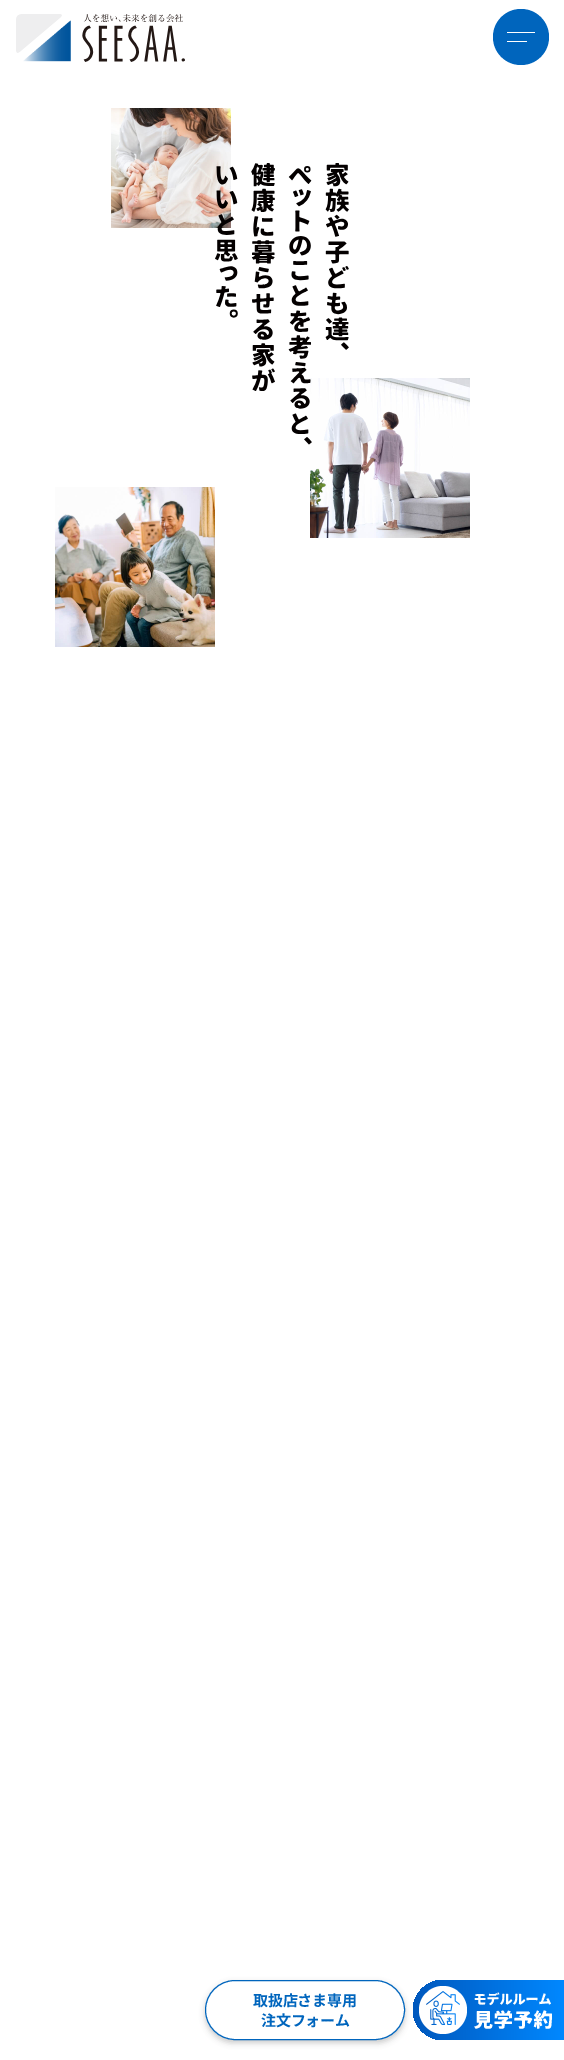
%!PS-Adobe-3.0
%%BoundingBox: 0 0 564 2060
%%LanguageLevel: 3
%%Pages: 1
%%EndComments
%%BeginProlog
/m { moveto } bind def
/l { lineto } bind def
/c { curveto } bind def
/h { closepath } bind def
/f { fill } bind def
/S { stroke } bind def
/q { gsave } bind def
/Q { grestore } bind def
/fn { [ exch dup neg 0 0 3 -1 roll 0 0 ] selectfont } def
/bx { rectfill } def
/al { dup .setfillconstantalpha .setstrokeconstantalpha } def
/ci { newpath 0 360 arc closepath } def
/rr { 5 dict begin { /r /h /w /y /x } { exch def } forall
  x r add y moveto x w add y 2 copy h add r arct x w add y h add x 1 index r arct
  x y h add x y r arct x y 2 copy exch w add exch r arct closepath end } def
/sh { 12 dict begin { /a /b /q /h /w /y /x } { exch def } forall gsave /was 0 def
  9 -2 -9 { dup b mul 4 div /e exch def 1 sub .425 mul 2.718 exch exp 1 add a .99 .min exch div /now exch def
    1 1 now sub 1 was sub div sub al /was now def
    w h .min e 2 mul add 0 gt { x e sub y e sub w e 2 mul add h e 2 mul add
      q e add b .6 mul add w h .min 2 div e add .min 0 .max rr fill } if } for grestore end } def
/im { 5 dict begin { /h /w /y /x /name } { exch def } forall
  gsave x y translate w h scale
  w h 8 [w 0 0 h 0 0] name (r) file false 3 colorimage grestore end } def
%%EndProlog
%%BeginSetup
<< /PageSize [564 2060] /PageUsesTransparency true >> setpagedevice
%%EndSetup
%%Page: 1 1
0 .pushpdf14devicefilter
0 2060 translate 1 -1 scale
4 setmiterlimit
1 setgray
0 0 564 2060 bx
(image0.raw) 16 14 169 48 im
0 0.396 0.741 setrgbcolor
521 37 28 ci f
1 setgray
507 32 28 1 bx
507 41 20 1 bx
(image1.raw) 111 108 120 120 im
(image2.raw) 55 487 160 160 im
(image3.raw) 310 378 160 160 im
(image4.raw) 215 163 134 282 im
q 443 1980 m 564 1980 l 564 2040 l 443 2040 l 426.5 2040 413 2026.5 413 2010 c 413 1993.5 426.5 1980 443 1980 c h clip newpath
<< /ShadingType 2 /ColorSpace /DeviceRGB /Coords [564 2010 413 2010] /Extend [true true] /Function << /FunctionType 2 /Domain [0 1] /C0 [0 0.533 1] /C1 [0 0.345 0.741] /N 1 >> >> shfill Q
0 setgray
205 1983 200 60 30 3 0.2 sh
1 setgray
205.5 1980.5 199 59 29.5 rr q f Q
0 0.396 0.741 setrgbcolor
S
/NotoSansJP-Bold 15 fn
253 2006 m -0.25 0 (取扱店さま専用) ashow
261 2026 m -0.25 0 (注文フォーム) ashow
1 setgray
443 2010 24 ci f
(image5.raw) 426 1991 34 34 im
/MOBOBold-Bold 14 fn
473 2004 m -1 0 (モデルルーム) ashow
/MOBOBold-Bold 20.5 fn
473 2027 m -0.5 0 (見学予約) ashow
.poppdf14devicefilter showpage
%%EOF
